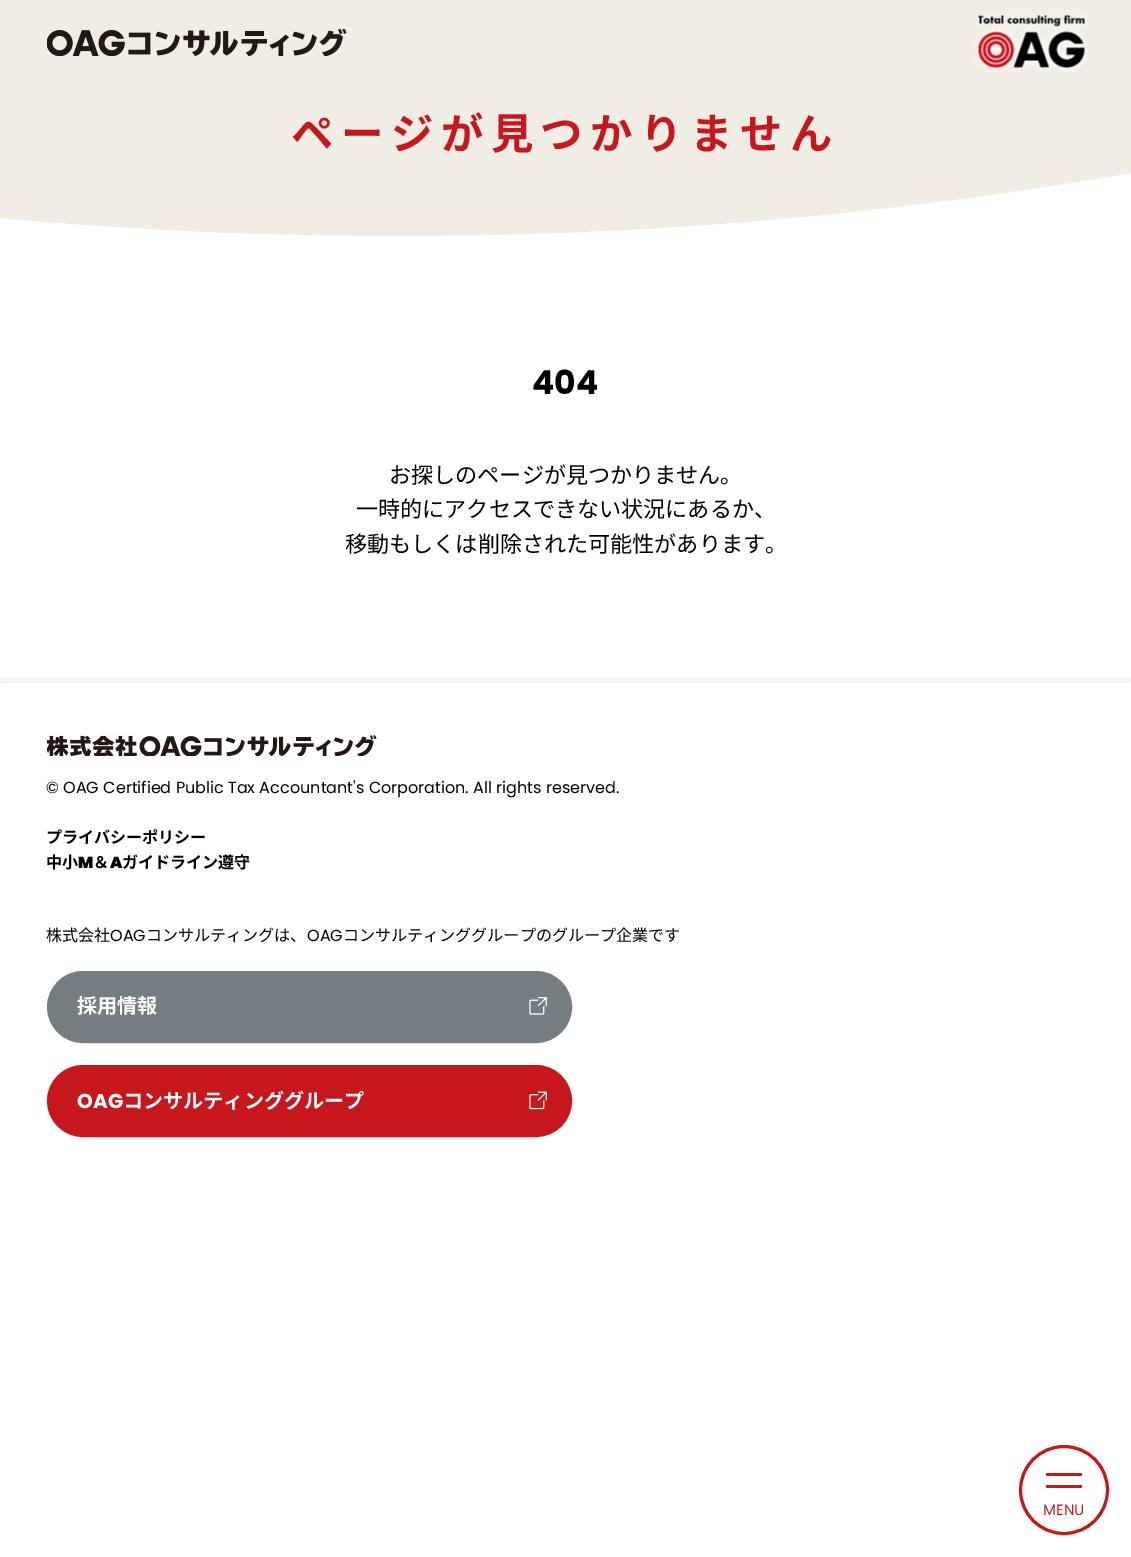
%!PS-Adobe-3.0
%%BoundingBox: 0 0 1131 1557
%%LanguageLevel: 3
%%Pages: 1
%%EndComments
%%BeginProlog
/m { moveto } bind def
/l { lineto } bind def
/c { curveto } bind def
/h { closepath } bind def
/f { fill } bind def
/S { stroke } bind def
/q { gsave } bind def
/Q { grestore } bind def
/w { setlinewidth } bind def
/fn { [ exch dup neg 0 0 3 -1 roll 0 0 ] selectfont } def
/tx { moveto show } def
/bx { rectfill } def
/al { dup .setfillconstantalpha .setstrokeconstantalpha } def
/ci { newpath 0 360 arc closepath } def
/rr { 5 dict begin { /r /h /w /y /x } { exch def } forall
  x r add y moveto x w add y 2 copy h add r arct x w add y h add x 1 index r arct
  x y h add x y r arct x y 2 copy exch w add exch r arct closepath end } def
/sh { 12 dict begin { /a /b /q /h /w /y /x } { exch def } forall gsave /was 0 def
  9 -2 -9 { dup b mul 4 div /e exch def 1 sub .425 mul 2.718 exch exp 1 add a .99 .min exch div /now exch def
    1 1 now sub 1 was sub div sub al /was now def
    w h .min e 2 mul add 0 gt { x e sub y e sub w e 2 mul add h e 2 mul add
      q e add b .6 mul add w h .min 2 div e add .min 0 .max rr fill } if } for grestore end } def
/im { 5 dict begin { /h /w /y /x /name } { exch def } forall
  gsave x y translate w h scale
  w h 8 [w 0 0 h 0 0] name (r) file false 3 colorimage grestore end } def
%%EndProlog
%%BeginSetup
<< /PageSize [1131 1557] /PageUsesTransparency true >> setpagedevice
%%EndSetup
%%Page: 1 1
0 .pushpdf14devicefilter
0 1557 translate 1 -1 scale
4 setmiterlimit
1 setgray
0 0 1131 1557 bx
0.941 0.933 0.894 setrgbcolor
0 218 m 132 230 264 236 397 236 c 643 236 890 215 1131 173 c 1131 -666 l 0 -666 l h eofill
(image0.raw) 47 29 300 27 im
(image1.raw) 975 14 113 58 im
/NotoSansJP-Bold 42.4 fn
0.784 0.086 0.114 setrgbcolor
291 149 m 7.5 0 (ページが見つかりません) ashow
/Poppins-Bold 33 fn
0 setgray
(404) 532 394 tx
/NotoSansJP-Regular 22.1 fn
(お探しのページが見つかりません。) 389 483 tx
(一時的にアクセスできない状況にあるか、) 356 517 tx
(移動もしくは削除された可能性があります。) 345 552 tx
q
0 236 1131 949 rectclip
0 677 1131 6 rectclip
0 683 1131 502 0 7.5 0.1 sh
Q
(image2.raw) 47 735 330 21 im
/Poppins-Regular 16.05 fn
(© OAG Certified Public Tax Accountant's Corporation. All rights reserved.) 46 793 tx
/NotoSansJP-Bold 16.05 fn
(プライバシーポリシー) 46 843 tx
(中小) 46 868 tx
/Poppins-Black 16.05 fn
(M) 78 868 tx
/NotoSansJP-Bold 16.05 fn
(＆) 93 868 tx
/Poppins-Black 16.05 fn
(A) 110 868 tx
/NotoSansJP-Bold 16.05 fn
(ガイドライン遵守) 122 868 tx
/NotoSansJP-Regular 16.05 fn
(株式会社) 46 941 tx
/Poppins-Regular 16.05 fn
(OAG) 110 941 tx
/NotoSansJP-Regular 16.05 fn
(コンサルティングは、) 146 941 tx
/Poppins-Regular 16.05 fn
(OAG) 307 941 tx
/NotoSansJP-Regular 16.05 fn
(コンサルティンググループのグループ企業です) 343 941 tx
0.451 0.49 0.51 setrgbcolor
48.5 972.5 522 69 34.5 rr q f Q
3 w
S
/NotoSansJP-Bold 20.1 fn
1 setgray
(採用情報) 77 1013 tx
(image3.raw) 529 997 18 18 im
0.784 0.086 0.114 setrgbcolor
48.5 1066.5 522 69 34.5 rr q f Q
S
/Poppins-Bold 20.1 fn
1 setgray
(OAG) 77 1108 tx
/NotoSansJP-Bold 20.1 fn
(コンサルティンググループ) 123 1108 tx
(image4.raw) 529 1091 18 19 im
0.784 0.086 0.114 setrgbcolor
1064 1490 43.5 ci S
1046 1473 36 3 1.5 rr f
1046 1485 36 3 1.5 rr f
/Poppins-Regular 15 fn
(MENU) 1043 1515 tx
.poppdf14devicefilter showpage
%%EOF
